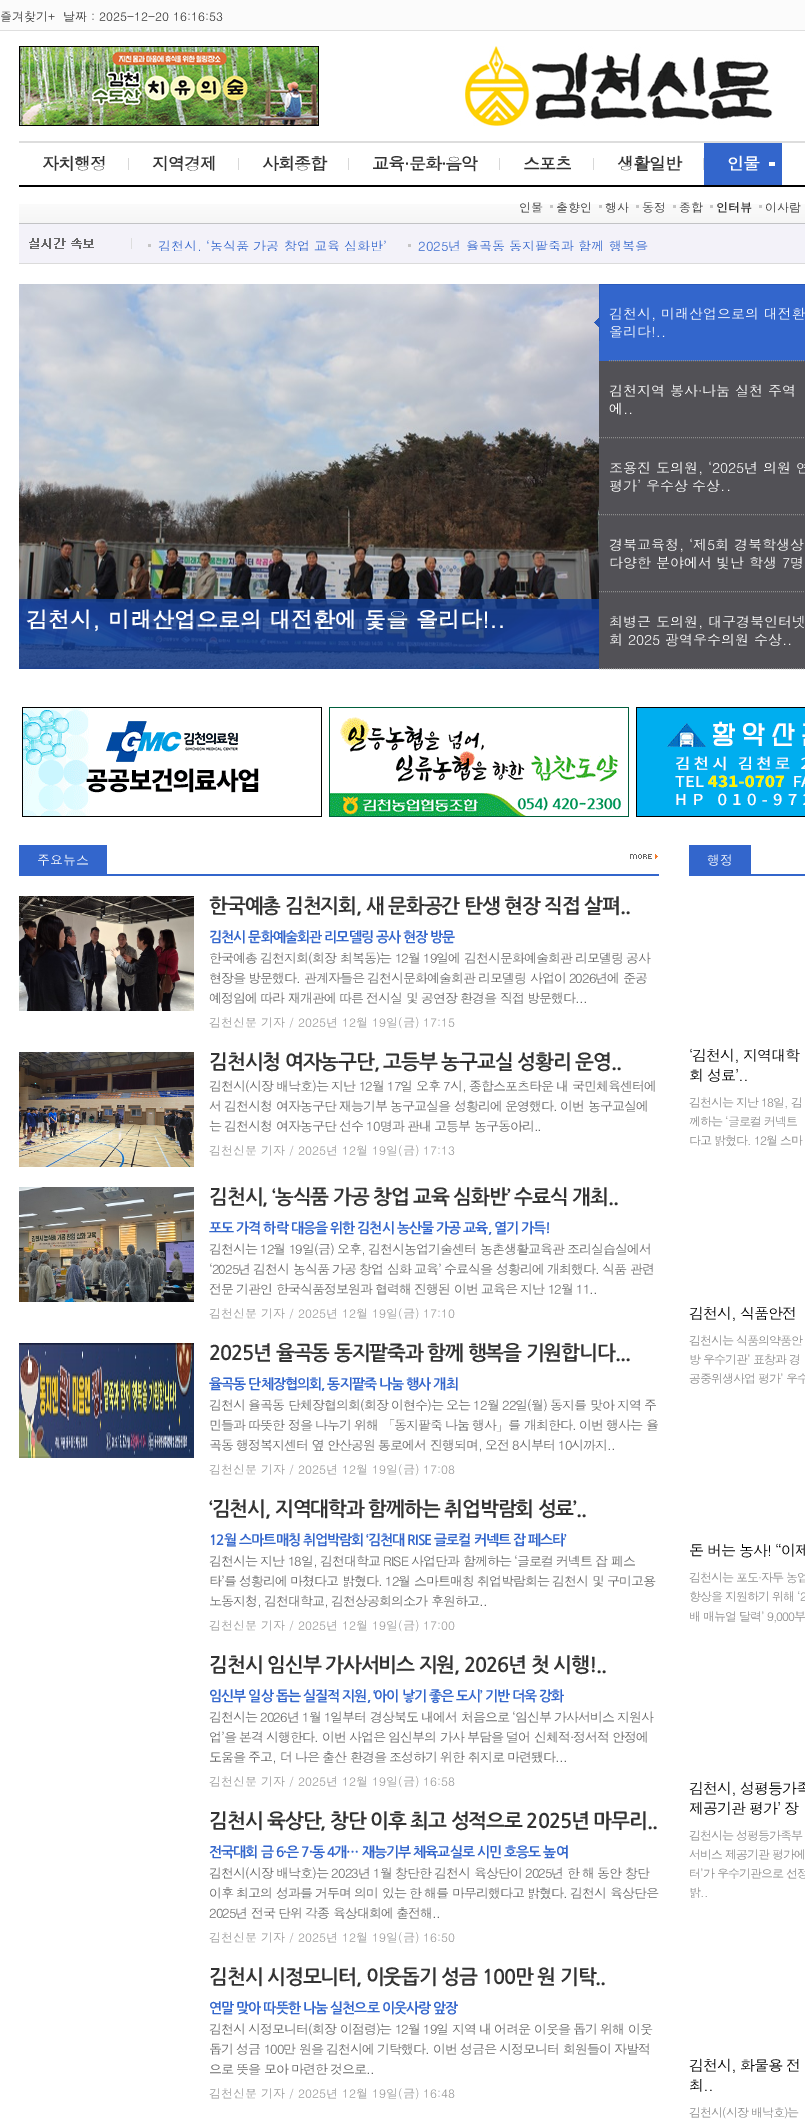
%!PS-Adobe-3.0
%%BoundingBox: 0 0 805 2120
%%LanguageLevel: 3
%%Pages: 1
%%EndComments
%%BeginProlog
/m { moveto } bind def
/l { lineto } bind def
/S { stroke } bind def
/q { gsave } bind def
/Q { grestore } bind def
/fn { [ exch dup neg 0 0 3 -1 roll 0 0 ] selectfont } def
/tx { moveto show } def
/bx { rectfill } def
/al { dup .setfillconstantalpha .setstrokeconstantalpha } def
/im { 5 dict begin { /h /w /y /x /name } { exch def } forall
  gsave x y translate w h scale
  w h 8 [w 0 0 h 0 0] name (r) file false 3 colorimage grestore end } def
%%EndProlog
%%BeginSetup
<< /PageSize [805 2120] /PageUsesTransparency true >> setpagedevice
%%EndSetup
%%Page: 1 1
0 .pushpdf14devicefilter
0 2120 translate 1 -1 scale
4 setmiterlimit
1 setgray
0 0 805 2120 bx
0.984 setgray
0 0 805 30 bx
0.875 setgray
0 30 805 1 bx
/Dotum-Regular 12 fn
0.2 setgray
(즐겨찾기+  날짜 : 2025-12-20 16:16:53) 0 21 tx
(image0.raw) 19 46 300 80 im
(image1.raw) 465 46 308 80 im
0.867 setgray
19 141 786 2 bx
0 setgray
19 185 786 2 bx
0.847 setgray
128 158 1 12 bx
/Dotum-Bold 17 fn
0.2 setgray
42 170 m -1 0 (자치행정) ashow
0.847 setgray
238 158 1 12 bx
0.2 setgray
152 170 m -1 0 (지역경제) ashow
0.847 setgray
348 158 1 12 bx
0.2 setgray
262 170 m -1 0 (사회종합) ashow
0.847 setgray
499 158 1 12 bx
0.2 setgray
372 170 m -1 0 (교육·문화·음악) ashow
0.847 setgray
593 158 1 12 bx
0.2 setgray
523 170 m -1 0 (스포츠) ashow
0.847 setgray
703 158 1 12 bx
0.2 setgray
617 170 m -1 0 (생활일반) ashow
0.2 0.4 0.8 setrgbcolor
704 143 78 42 bx
1 setgray
769 162 6 4 bx
727 170 m -1 0 (인물) ashow
(image2.raw) 19 204 786 19 im
0.761 0.765 0.773 setrgbcolor
19 223 786 1 bx
/Dotum-Regular 12 fn
0.2 setgray
(인물) 519 212 tx
(출향인) 556 212 tx
0.773 setgray
550 205 3 3 bx
0.2 setgray
(행사) 605 212 tx
0.773 setgray
599 205 3 3 bx
0.2 setgray
(동정) 642 212 tx
0.773 setgray
636 205 3 3 bx
0.2 setgray
(종합) 679 212 tx
0.773 setgray
673 205 3 3 bx
/Dotum-Bold 12 fn
0.2 setgray
(인터뷰) 716 212 tx
0.773 setgray
710 205 3 3 bx
/Dotum-Regular 12 fn
0.2 setgray
(이사람) 765 212 tx
0.773 setgray
759 205 3 3 bx
0.953 0.949 0.976 setrgbcolor
19 224 786 39 bx
0.859 setgray
19 263 786 1 bx
(image3.raw) 29 238 103 11 im
0.773 setgray
148 244 3 3 bx
q
141 236 510 15 rectclip
/Dotum-Regular 13 fn
0.2 0.4 0.8 setrgbcolor
(김천시, ‘농식품 가공 창업 교육 심화반’) 158 251 tx
Q
408 244 3 3 bx
q
141 236 510 15 rectclip
/Dotum-Regular 13 fn
0.2 0.4 0.8 setrgbcolor
(2025년 율곡동 동지팥죽과 함께 행복을) 418 251 tx
Q
(image4.raw) 19 284 580 385 im
0.8 al
0.063 0.235 0.576 setrgbcolor
19 599 580 70 bx
/Dotum-Bold 22 fn
1 al
1 setgray
(김천시, 미래산업으로의 대전환에 돛을 올리다!..) 26 628 tx
0.322 0.318 0.337 setrgbcolor
599 361 206 308 bx
0.2 0.4 0.8 setrgbcolor
599 285 206 76 bx
/Dotum-Bold 14 fn
1 setgray
(김천시, 미래산업으로의 대전환) 609 319 tx
(올리다!..) 609 337 tx
(image5.raw) 594 284 211 57 im
0.549 setgray
[1 1] 0 setdash
609 360.5 m 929 360.5 l S
599 437.5 m 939 437.5 l S
/Dotum-Regular 14 fn
1 setgray
(김천지역 봉사·나눔 실천 주역) 609 396 tx
(에..) 609 414 tx
0.549 setgray
599 514.5 m 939 514.5 l S
1 setgray
(조용진 도의원, ‘2025년 의원 연) 609 473 tx
(평가’ 우수상 수상..) 609 491 tx
0.549 setgray
599 591.5 m 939 591.5 l S
1 setgray
(경북교육청, ‘제5회 경북학생상) 609 550 tx
(다양한 분야에서 빛난 학생 7명) 609 568 tx
0.549 setgray
599 668.5 m 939 668.5 l S
1 setgray
(최병근 도의원, 대구경북인터넷) 609 627 tx
(회 2025 광역우수의원 수상..) 609 645 tx
(image6.raw) 22 707 300 110 im
(image7.raw) 329 707 300 110 im
(image8.raw) 636 707 169 110 im
0.2 0.4 0.8 setrgbcolor
19 845 88 29 bx
/Dotum-Regular 13 fn
1 setgray
(주요뉴스) 37 865 tx
(image9.raw) 630 854 28 5 im
0.2 0.4 0.8 setrgbcolor
19 874 640 2 bx
(image10.raw) 19 896 175 115 im
/NanumGothic-Bold 20 fn
0.2 setgray
209 913 m -1 0 (한국예총 김천지회, 새 문화공간 탄생 현장 직접 살펴..) ashow
/NanumGothic-Bold 14 fn
0.2 0.4 0.8 setrgbcolor
209 942 m -1 0 (김천시 문화예술회관 리모델링 공사 현장 방문) ashow
/Dotum-Regular 13 fn
0.4 setgray
209 963 m -1 0 (한국예총 김천지회\(회장 최복동\)는 12월 19일에 김천시문화예술회관 리모델링 공사) ashow
209 983 m -1 0 (현장을 방문했다. 관계자들은 김천시문화예술회관 리모델링 사업이 2026년에 준공) ashow
209 1003 m -1 0 (예정임에 따라 재개관에 따른 전시실 및 공연장 환경을 직접 방문했다...) ashow
/Dotum-Regular 12 fn
0.6 setgray
(김천신문 기자 / 2025년 12월 19일\(금\) 17:15) 209 1027 tx
(image11.raw) 19 1052 175 115 im
/NanumGothic-Bold 20 fn
0.2 setgray
209 1069 m -1 0 (김천시청 여자농구단, 고등부 농구교실 성황리 운영..) ashow
/Dotum-Regular 13 fn
0.4 setgray
209 1091 m -1 0 (김천시\(시장 배낙호\)는 지난 12월 17일 오후 7시, 종합스포츠타운 내 국민체육센터에) ashow
209 1111 m -1 0 (서 김천시청 여자농구단 재능기부 농구교실을 성황리에 운영했다. 이번 농구교실에) ashow
209 1131 m -1 0 (는 김천시청 여자농구단 선수 10명과 관내 고등부 농구동아리..) ashow
/Dotum-Regular 12 fn
0.6 setgray
(김천신문 기자 / 2025년 12월 19일\(금\) 17:13) 209 1155 tx
(image12.raw) 19 1187 175 115 im
/NanumGothic-Bold 20 fn
0.2 setgray
209 1204 m -1 0 (김천시, ‘농식품 가공 창업 교육 심화반’ 수료식 개최..) ashow
/NanumGothic-Bold 14 fn
0.2 0.4 0.8 setrgbcolor
209 1233 m -1 0 (포도 가격 하락 대응을 위한 김천시 농산물 가공 교육, 열기 가득!) ashow
/Dotum-Regular 13 fn
0.4 setgray
209 1254 m -1 0 (김천시는 12월 19일\(금\) 오후, 김천시농업기술센터 농촌생활교육관 조리실습실에서) ashow
209 1274 m -1 0 (‘2025년 김천시 농식품 가공 창업 심화 교육’ 수료식을 성황리에 개최했다. 식품 관련) ashow
209 1294 m -1 0 (전문 기관인 한국식품정보원과 협력해 진행된 이번 교육은 지난 12월 11..) ashow
/Dotum-Regular 12 fn
0.6 setgray
(김천신문 기자 / 2025년 12월 19일\(금\) 17:10) 209 1318 tx
(image13.raw) 19 1343 175 115 im
/NanumGothic-Bold 20 fn
0.2 setgray
209 1360 m -1 0 (2025년 율곡동 동지팥죽과 함께 행복을 기원합니다...) ashow
/NanumGothic-Bold 14 fn
0.2 0.4 0.8 setrgbcolor
209 1389 m -1 0 (율곡동 단체장협의회, 동지팥죽 나눔 행사 개최) ashow
/Dotum-Regular 13 fn
0.4 setgray
209 1410 m -1 0 (김천시 율곡동 단체장협의회\(회장 이현수\)는 오는 12월 22일\(월\) 동지를 맞아 지역 주) ashow
209 1430 m -1 0 (민들과 따뜻한 정을 나누기 위해 「동지팥죽 나눔 행사」를 개최한다. 이번 행사는 율) ashow
209 1450 m -1 0 (곡동 행정복지센터 옆 안산공원 통로에서 진행되며, 오전 8시부터 10시까지..) ashow
/Dotum-Regular 12 fn
0.6 setgray
(김천신문 기자 / 2025년 12월 19일\(금\) 17:08) 209 1474 tx
/NanumGothic-Bold 20 fn
0.2 setgray
209 1516 m -1 0 (‘김천시, 지역대학과 함께하는 취업박람회 성료’..) ashow
/NanumGothic-Bold 14 fn
0.2 0.4 0.8 setrgbcolor
209 1545 m -1 0 (12월 스마트매칭 취업박람회 ‘김천대 RISE 글로컬 커넥트 잡 페스타’) ashow
/Dotum-Regular 13 fn
0.4 setgray
209 1566 m -1 0 (김천시는 지난 18일, 김천대학교 RISE 사업단과 함께하는 ‘글로컬 커넥트 잡 페스) ashow
209 1586 m -1 0 (타’를 성황리에 마쳤다고 밝혔다. 12월 스마트매칭 취업박람회는 김천시 및 구미고용) ashow
209 1606 m -1 0 (노동지청, 김천대학교, 김천상공회의소가 후원하고..) ashow
/Dotum-Regular 12 fn
0.6 setgray
(김천신문 기자 / 2025년 12월 19일\(금\) 17:00) 209 1630 tx
/NanumGothic-Bold 20 fn
0.2 setgray
209 1672 m -1 0 (김천시 임신부 가사서비스 지원, 2026년 첫 시행!..) ashow
/NanumGothic-Bold 14 fn
0.2 0.4 0.8 setrgbcolor
209 1701 m -1 0 (임신부 일상 돕는 실질적 지원, ‘아이 낳기 좋은 도시’ 기반 더욱 강화) ashow
/Dotum-Regular 13 fn
0.4 setgray
209 1722 m -1 0 (김천시는 2026년 1월 1일부터 경상북도 내에서 처음으로 ‘임신부 가사서비스 지원사) ashow
209 1742 m -1 0 (업’을 본격 시행한다. 이번 사업은 임신부의 가사 부담을 덜어 신체적·정서적 안정에) ashow
209 1762 m -1 0 (도움을 주고, 더 나은 출산 환경을 조성하기 위한 취지로 마련됐다...) ashow
/Dotum-Regular 12 fn
0.6 setgray
(김천신문 기자 / 2025년 12월 19일\(금\) 16:58) 209 1786 tx
/NanumGothic-Bold 20 fn
0.2 setgray
209 1828 m -1 0 (김천시 육상단, 창단 이후 최고 성적으로 2025년 마무리..) ashow
/NanumGothic-Bold 14 fn
0.2 0.4 0.8 setrgbcolor
209 1857 m -1 0 (전국대회 금 6·은 7·동 4개… 재능기부 체육교실로 시민 호응도 높여) ashow
/Dotum-Regular 13 fn
0.4 setgray
209 1878 m -1 0 (김천시\(시장 배낙호\)는 2023년 1월 창단한 김천시 육상단이 2025년 한 해 동안 창단) ashow
209 1898 m -1 0 (이후 최고의 성과를 거두며 의미 있는 한 해를 마무리했다고 밝혔다. 김천시 육상단은) ashow
209 1918 m -1 0 (2025년 전국 단위 각종 육상대회에 출전해..) ashow
/Dotum-Regular 12 fn
0.6 setgray
(김천신문 기자 / 2025년 12월 19일\(금\) 16:50) 209 1942 tx
/NanumGothic-Bold 20 fn
0.2 setgray
209 1984 m -1 0 (김천시 시정모니터, 이웃돕기 성금 100만 원 기탁..) ashow
/NanumGothic-Bold 14 fn
0.2 0.4 0.8 setrgbcolor
209 2013 m -1 0 (연말 맞아 따뜻한 나눔 실천으로 이웃사랑 앞장) ashow
/Dotum-Regular 13 fn
0.4 setgray
209 2034 m -1 0 (김천시 시정모니터\(회장 이점령\)는 12월 19일 지역 내 어려운 이웃을 돕기 위해 이웃) ashow
209 2054 m -1 0 (돕기 성금 100만 원을 김천시에 기탁했다. 이번 성금은 시정모니터 회원들이 자발적) ashow
209 2074 m -1 0 (으로 뜻을 모아 마련한 것으로..) ashow
/Dotum-Regular 12 fn
0.6 setgray
(김천신문 기자 / 2025년 12월 19일\(금\) 16:48) 209 2098 tx
0.2 0.4 0.8 setrgbcolor
689 845 62 29 bx
/Dotum-Regular 13 fn
1 setgray
(행정) 707 865 tx
0.2 0.4 0.8 setrgbcolor
689 874 116 2 bx
/Dotum-Regular 15 fn
0 setgray
689 1061 m -1 0 (‘김천시, 지역대학) ashow
689 1081 m -1 0 (회 성료’..) ashow
/Dotum-Regular 12 fn
0.533 setgray
689 1107 m -1 0 (김천시는 지난 18일, 김) ashow
689 1126 m -1 0 (께하는 ‘글로컬 커넥트) ashow
689 1145 m -1 0 (다고 밝혔다. 12월 스마) ashow
/Dotum-Regular 15 fn
0 setgray
689 1319 m -1 0 (김천시, 식품안전) ashow
/Dotum-Regular 12 fn
0.533 setgray
689 1345 m -1 0 (김천시는 식품의약품안) ashow
689 1364 m -1 0 (방 우수기관’ 표창과 경) ashow
689 1383 m -1 0 (공중위생사업 평가’ 우수) ashow
/Dotum-Regular 15 fn
0 setgray
689 1556 m -1 0 (돈 버는 농사! “이제) ashow
/Dotum-Regular 12 fn
0.533 setgray
689 1582 m -1 0 (김천시는 포도·자두 농업) ashow
689 1601 m -1 0 (향상을 지원하기 위해 ‘2) ashow
689 1621 m -1 0 (배 매뉴얼 달력’ 9,000부) ashow
/Dotum-Regular 15 fn
0 setgray
689 1794 m -1 0 (김천시, 성평등가족) ashow
689 1814 m -1 0 (제공기관 평가’ 장) ashow
/Dotum-Regular 12 fn
0.533 setgray
689 1840 m -1 0 (김천시는 성평등가족부) ashow
689 1859 m -1 0 (서비스 제공기관 평가에) ashow
689 1878 m -1 0 (터’가 우수기관으로 선정) ashow
689 1897 m -1 0 (밝..) ashow
/Dotum-Regular 15 fn
0 setgray
689 2071 m -1 0 (김천시, 화물용 전) ashow
689 2091 m -1 0 (최..) ashow
/Dotum-Regular 12 fn
0.533 setgray
689 2117 m -1 0 (김천시\(시장 배낙호\)는) ashow
.poppdf14devicefilter showpage
%%EOF
